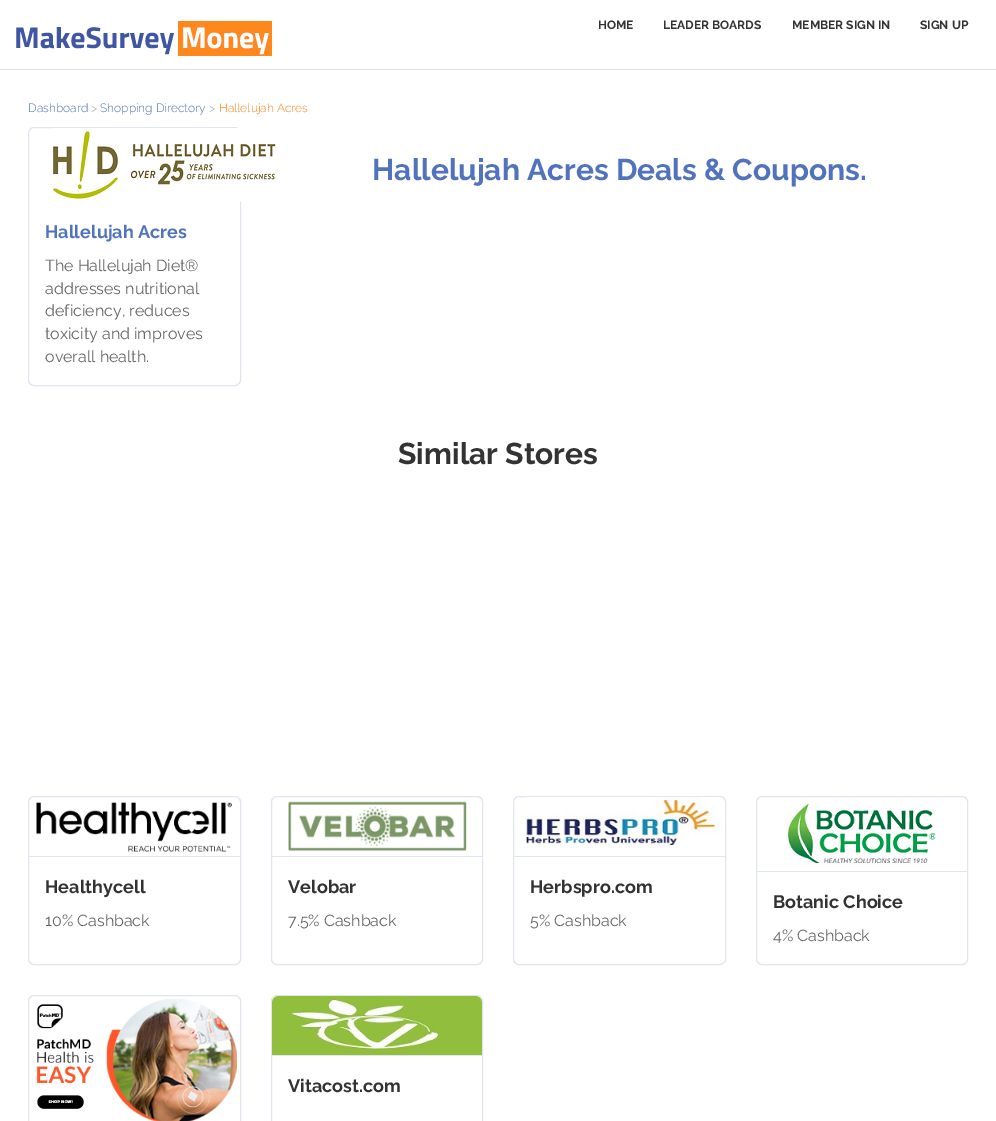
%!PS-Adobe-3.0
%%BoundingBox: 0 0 996 1121
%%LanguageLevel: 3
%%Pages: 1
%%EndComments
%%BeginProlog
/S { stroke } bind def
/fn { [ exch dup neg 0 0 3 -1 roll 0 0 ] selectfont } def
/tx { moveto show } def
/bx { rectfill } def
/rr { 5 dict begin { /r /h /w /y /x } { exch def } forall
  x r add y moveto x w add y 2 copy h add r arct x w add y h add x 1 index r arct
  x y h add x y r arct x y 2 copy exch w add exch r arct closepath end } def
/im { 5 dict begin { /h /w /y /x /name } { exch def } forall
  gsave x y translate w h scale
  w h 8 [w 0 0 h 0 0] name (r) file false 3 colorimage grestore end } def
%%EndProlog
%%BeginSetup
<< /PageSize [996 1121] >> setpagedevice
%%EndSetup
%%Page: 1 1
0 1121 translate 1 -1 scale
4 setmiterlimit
1 setgray
0 0 996 1121 bx
0.878 setgray
0 69 996 1 bx
(image0.raw) 16 21 256 35 im
/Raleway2-Thin 12 fn
0.2 setgray
(HOME) 598 29 tx
(LEADER BOARDS) 663 29 tx
(MEMBER SIGN IN) 792 29 tx
(SIGN UP) 920 29 tx
/Raleway-Thin 12 fn
0.318 0.451 0.741 setrgbcolor
(Dashboard) 28 112 tx
0.58 0.639 0.659 setrgbcolor
(>) 91 112 tx
0.318 0.451 0.741 setrgbcolor
(Shopping Directory) 100 112 tx
0.58 0.639 0.659 setrgbcolor
(>) 209 112 tx
1 0.529 0.11 setrgbcolor
(Hallelujah Acres) 219 112 tx
/Raleway2-Thin 30 fn
0.318 0.451 0.741 setrgbcolor
(Hallelujah Acres Deals & Coupons.) 372 180 tx
0.882 0.898 0.933 setrgbcolor
28.5 127.5 212 258 5.5 rr S
(image1.raw) 53 128 223 74 im
/Raleway2-Thin 18 fn
0.318 0.451 0.741 setrgbcolor
(Hallelujah Acres) 45 238 tx
/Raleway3-Thin 16 fn
0.4 setgray
(The Hallelujah Diet®) 45 271 tx
(addresses nutritional) 45 294 tx
(deficiency, reduces) 45 316 tx
(toxicity and improves) 45 339 tx
(overall health.) 45 362 tx
/Raleway2-Thin 30 fn
0.2 setgray
(Similar Stores) 398 464 tx
0.882 0.898 0.933 setrgbcolor
28.5 796.5 212 168 5.5 rr S
29 856 211 1 bx
(image2.raw) 36 802 196 50 im
/Raleway2-Thin 18 fn
0.2 setgray
(Healthycell) 45 893 tx
/Raleway3-Thin 16 fn
0.4 setgray
(10% Cashback) 45 926 tx
0.882 0.898 0.933 setrgbcolor
271.5 796.5 211 168 5.5 rr S
272 856 210 1 bx
(image3.raw) 288 801 179 51 im
/Raleway2-Thin 18 fn
0.2 setgray
(Velobar) 288 893 tx
/Raleway3-Thin 16 fn
0.4 setgray
(7.5% Cashback) 288 926 tx
0.882 0.898 0.933 setrgbcolor
513.5 796.5 212 168 5.5 rr S
514 856 211 1 bx
(image4.raw) 526 797 193 51 im
/Raleway2-Thin 18 fn
0.2 setgray
(Herbspro.com) 530 893 tx
/Raleway3-Thin 16 fn
0.4 setgray
(5% Cashback) 530 926 tx
0.882 0.898 0.933 setrgbcolor
756.5 796.5 211 168 5.5 rr S
757 871 210 1 bx
(image5.raw) 788 803 148 60 im
/Raleway2-Thin 18 fn
0.2 setgray
(Botanic Choice) 773 908 tx
/Raleway3-Thin 16 fn
0.4 setgray
(4% Cashback) 773 941 tx
0.882 0.898 0.933 setrgbcolor
28.5 995.5 212 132 5.5 rr S
(image6.raw) 36 999 201 122 im
271.5 995.5 211 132 5.5 rr S
272 1055 210 1 bx
(image7.raw) 272 996 210 59 im
/Raleway2-Thin 18 fn
0.2 setgray
(Vitacost.com) 288 1092 tx
showpage
%%EOF
